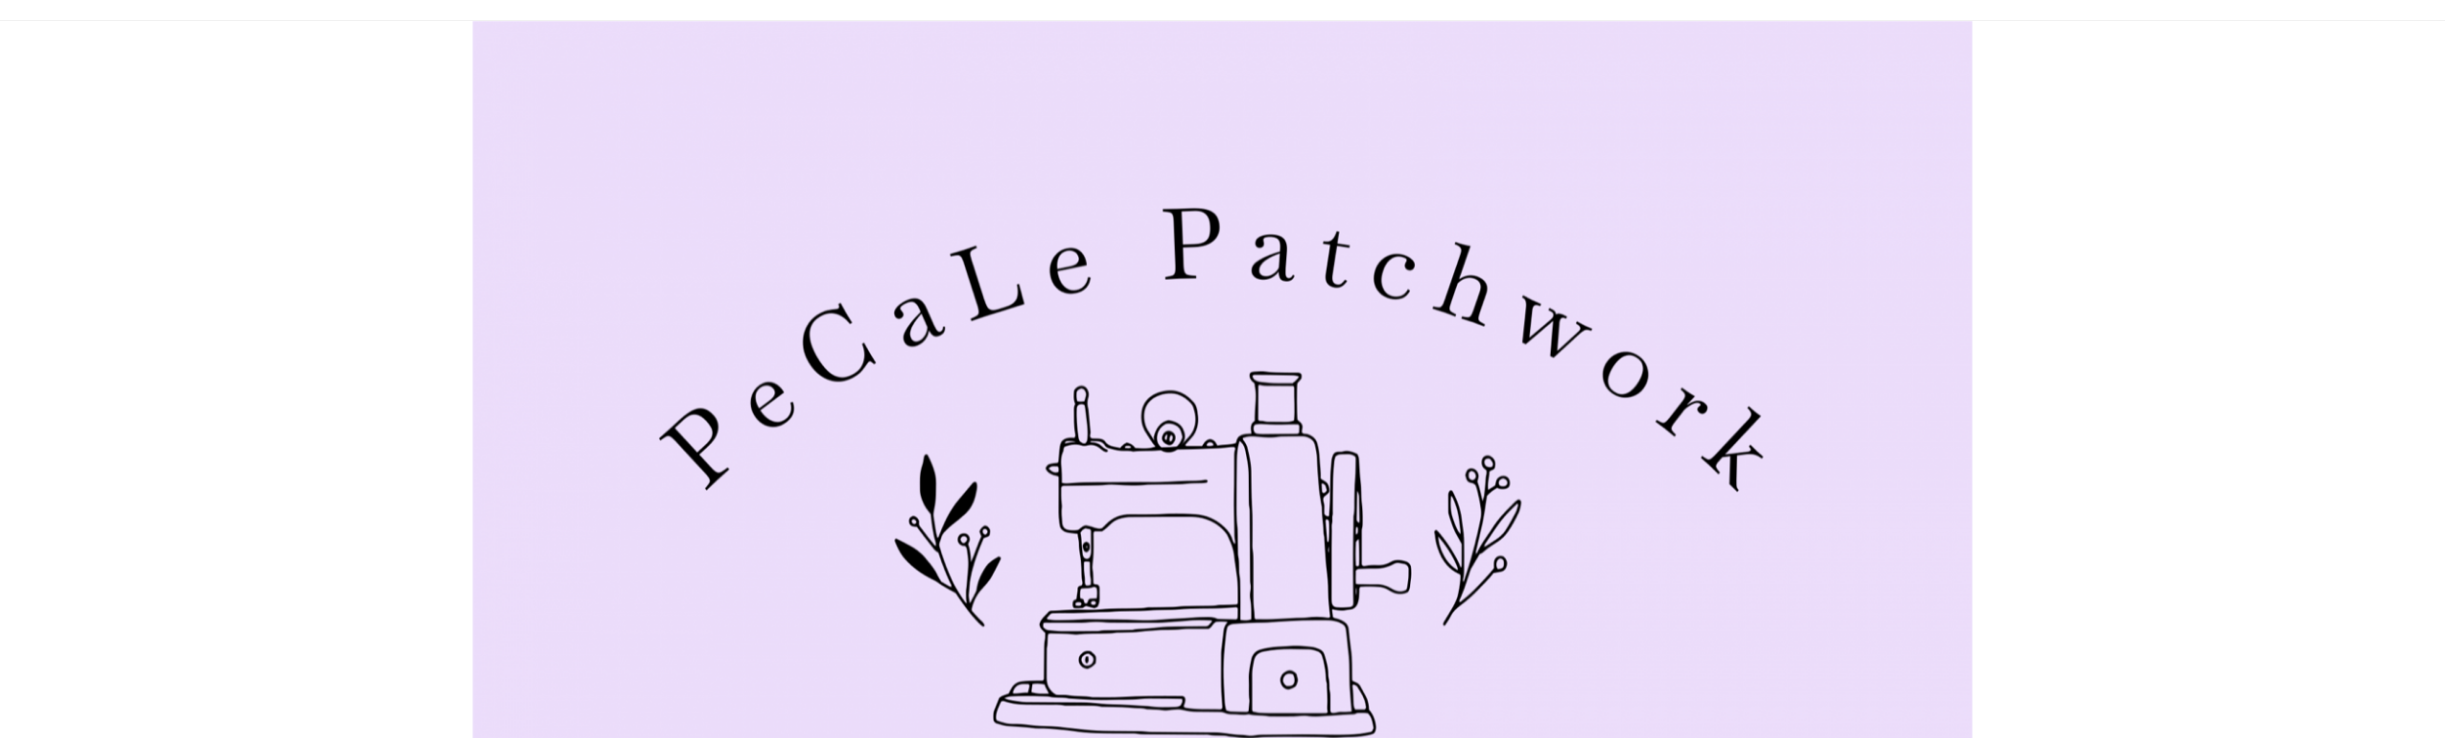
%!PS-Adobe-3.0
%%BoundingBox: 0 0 2445 738
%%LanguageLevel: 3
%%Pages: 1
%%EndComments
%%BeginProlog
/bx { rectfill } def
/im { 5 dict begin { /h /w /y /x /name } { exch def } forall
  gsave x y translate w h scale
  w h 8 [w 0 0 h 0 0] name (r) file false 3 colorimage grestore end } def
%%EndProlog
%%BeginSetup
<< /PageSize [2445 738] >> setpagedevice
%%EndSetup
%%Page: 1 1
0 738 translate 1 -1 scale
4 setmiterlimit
1 setgray
0 0 2445 738 bx
0.945 setgray
0 20 2445 1 bx
(image0.raw) 472 21 1501 717 im
showpage
%%EOF
